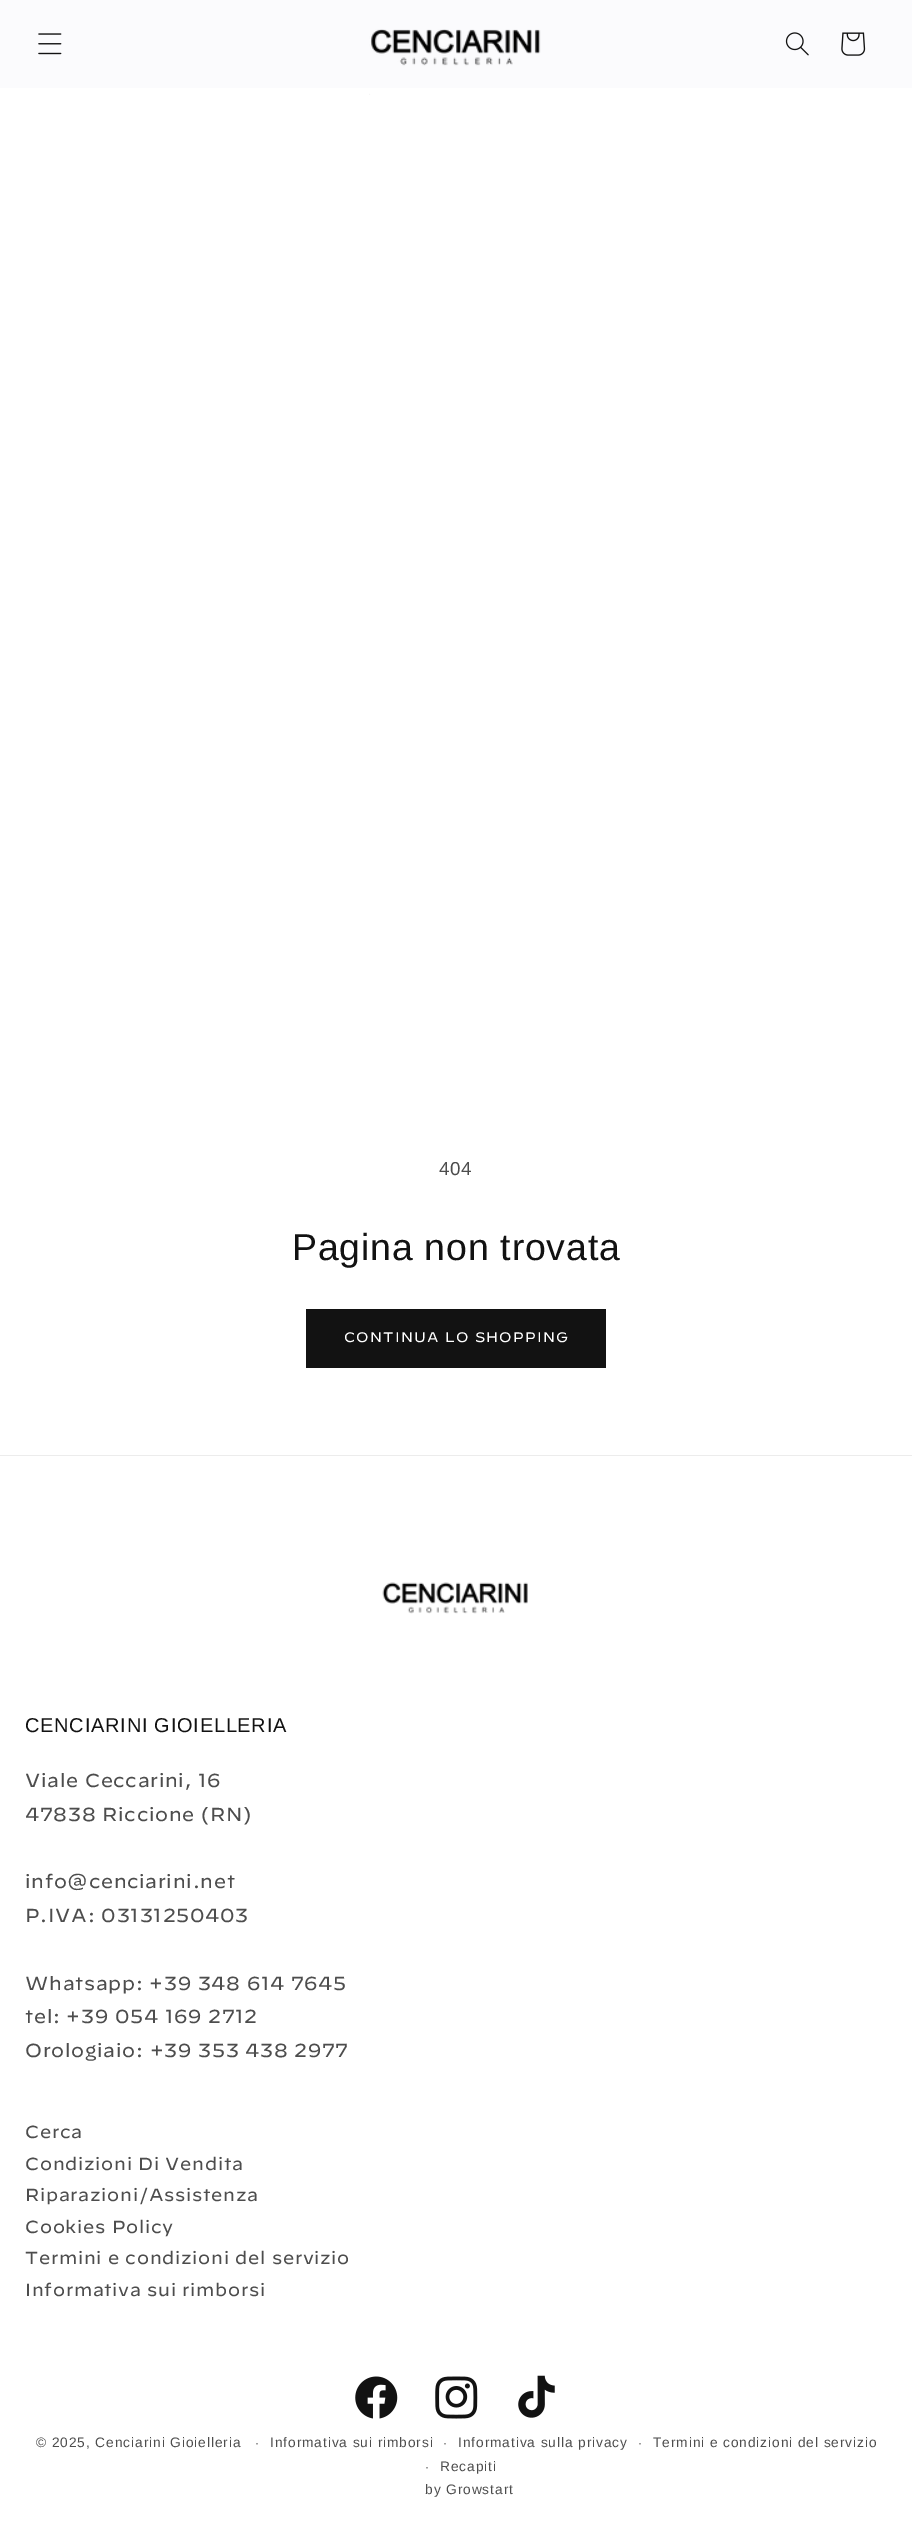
%!PS-Adobe-3.0
%%BoundingBox: 0 0 912 2534
%%LanguageLevel: 3
%%Pages: 1
%%EndComments
%%BeginProlog
/m { moveto } bind def
/fn { [ exch dup neg 0 0 3 -1 roll 0 0 ] selectfont } def
/bx { rectfill } def
/im { 5 dict begin { /h /w /y /x /name } { exch def } forall
  gsave x y translate w h scale
  w h 8 [w 0 0 h 0 0] name (r) file false 3 colorimage grestore end } def
%%EndProlog
%%BeginSetup
<< /PageSize [912 2534] >> setpagedevice
%%EndSetup
%%Page: 1 1
0 2534 translate 1 -1 scale
4 setmiterlimit
1 setgray
0 0 912 2534 bx
0.984 0.984 0.992 setrgbcolor
0 0 912 88 bx
(image0.raw) 38 33 24 22 im
(image1.raw) 369 29 172 66 im
(image2.raw) 785 32 24 24 im
(image3.raw) 841 32 25 24 im
/LiberationSans-Regular 18.75 fn
0.302 setgray
439 1175 m 0.75 0 (404) ashow
/LiberationSans-Regular 37.5 fn
0.071 setgray
292 1260 m 0.75 0 (Pagina non trovata) ashow
306 1309 300 59 bx
/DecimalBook-Regular 13.75 fn
1 setgray
344 1342 m 1.25 0 (CONTINUA LO SHOPPING) ashow
0.925 setgray
0 1455 912 1 bx
(image4.raw) 382 1582 146 32 im
/LiberationSans-Regular 20 fn
0.071 setgray
25 1732 m 0.75 0 (CENCIARINI GIOIELLERIA) ashow
/DecimalBook-Regular 18.75 fn
0.302 setgray
25 1787 m 0.75 0 (Viale Ceccarini, 16) ashow
25 1821 m 0.75 0 (47838 Riccione \(RN\)) ashow
25 1888 m 0.75 0 (info@cenciarini.net) ashow
25 1922 m 0.75 0 (P.IVA: 03131250403) ashow
25 1990 m 0.75 0 (Whatsapp: +39 348 614 7645) ashow
25 2023 m 0.75 0 (tel: +39 054 169 2712) ashow
25 2057 m 0.75 0 (Orologiaio: +39 353 438 2977) ashow
/DecimalBook-Regular 17.5 fn
25 2138 m 0.75 0 (Cerca) ashow
25 2170 m 0.75 0 (Condizioni Di Vendita) ashow
25 2201 m 0.75 0 (Riparazioni/Assistenza) ashow
25 2233 m 0.75 0 (Cookies Policy) ashow
25 2264 m 0.75 0 (Termini e condizioni del servizio) ashow
25 2296 m 0.75 0 (Informativa sui rimborsi) ashow
(image5.raw) 355 2376 43 43 im
(image6.raw) 435 2376 43 43 im
(image7.raw) 518 2375 37 43 im
/LiberationSans-Regular 13.75 fn
36 2447 m 0.9 0 (© 2025, Cenciarini Gioielleria) ashow
/LiberationSans-Regular 12 fn
255 2447 m 0.9 0 (·) ashow
/LiberationSans-Regular 13.75 fn
270 2447 m 0.9 0 (Informativa sui rimborsi) ashow
/LiberationSans-Regular 12 fn
443 2447 m 0.9 0 (·) ashow
/LiberationSans-Regular 13.75 fn
458 2447 m 0.9 0 (Informativa sulla privacy) ashow
/LiberationSans-Regular 12 fn
638 2447 m 0.9 0 (·) ashow
/LiberationSans-Regular 13.75 fn
653 2447 m 0.9 0 (Termini e condizioni del servizio) ashow
/LiberationSans-Regular 12 fn
425 2471 m 0.9 0 (·) ashow
/LiberationSans-Regular 13.75 fn
440 2471 m 0.9 0 (Recapiti) ashow
425 2494 m 0.9 0 (by Growstart) ashow
showpage
%%EOF
